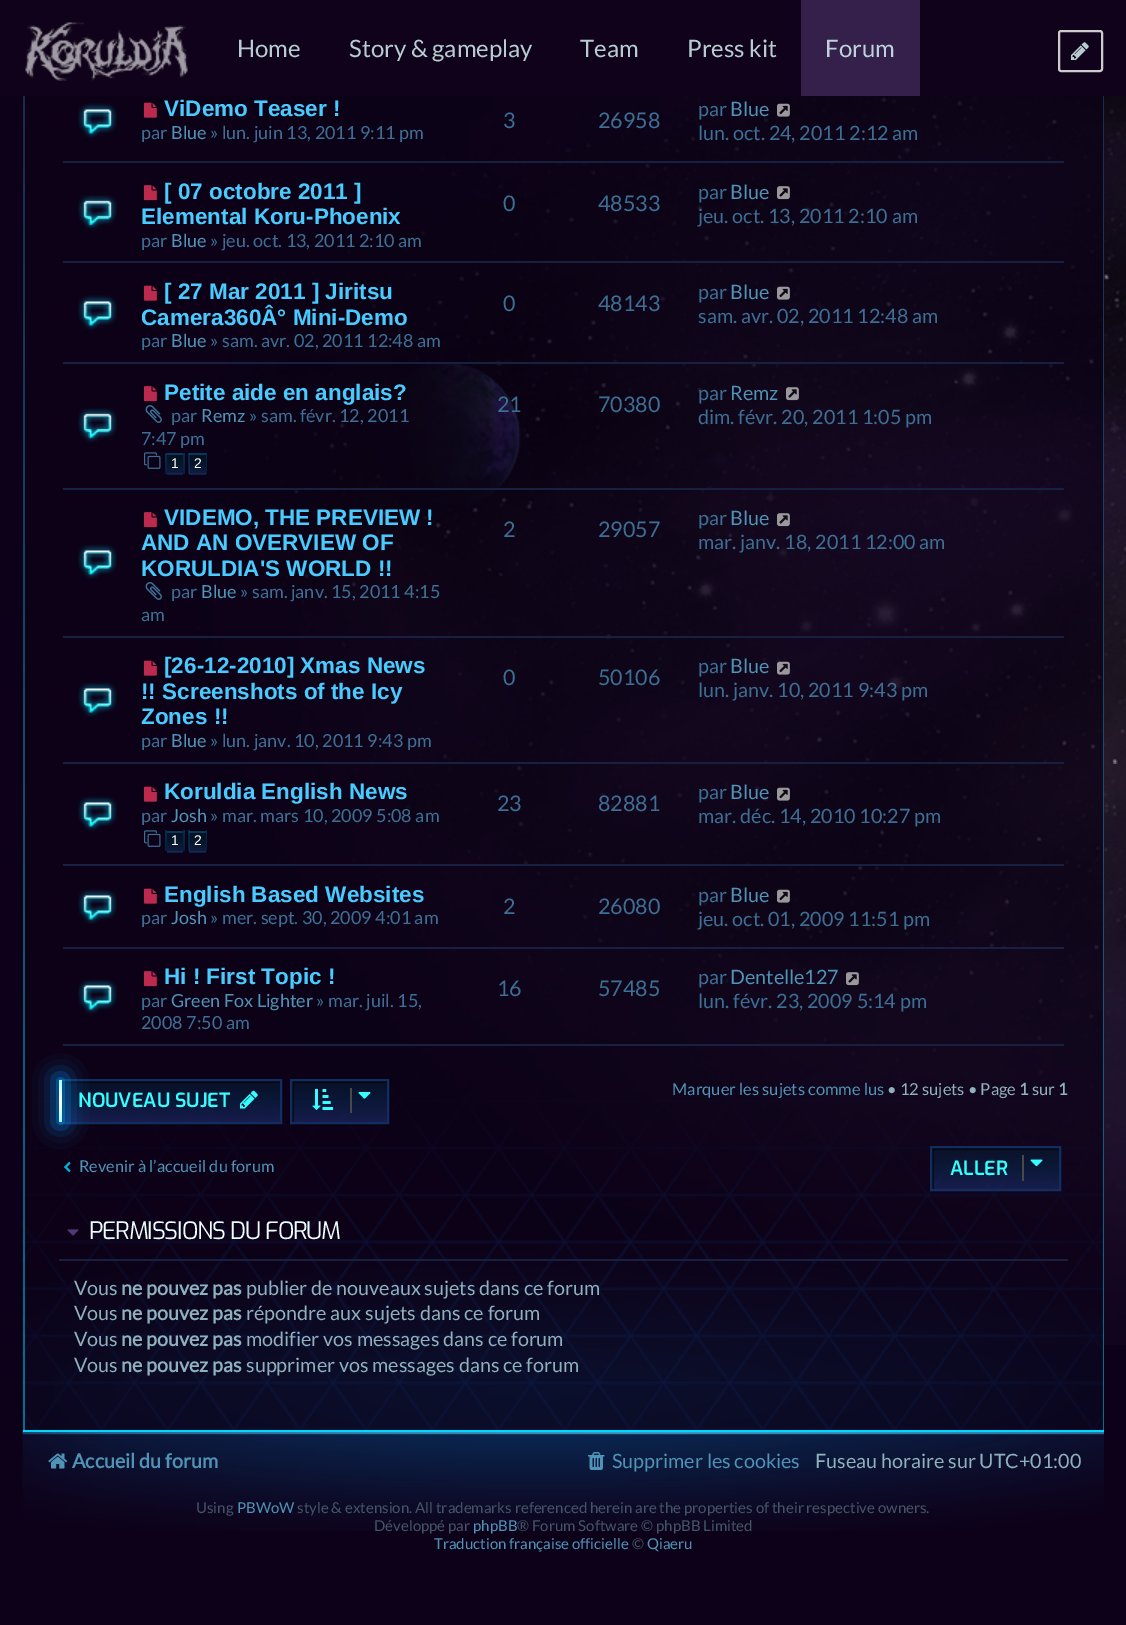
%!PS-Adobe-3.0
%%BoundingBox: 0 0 1126 1625
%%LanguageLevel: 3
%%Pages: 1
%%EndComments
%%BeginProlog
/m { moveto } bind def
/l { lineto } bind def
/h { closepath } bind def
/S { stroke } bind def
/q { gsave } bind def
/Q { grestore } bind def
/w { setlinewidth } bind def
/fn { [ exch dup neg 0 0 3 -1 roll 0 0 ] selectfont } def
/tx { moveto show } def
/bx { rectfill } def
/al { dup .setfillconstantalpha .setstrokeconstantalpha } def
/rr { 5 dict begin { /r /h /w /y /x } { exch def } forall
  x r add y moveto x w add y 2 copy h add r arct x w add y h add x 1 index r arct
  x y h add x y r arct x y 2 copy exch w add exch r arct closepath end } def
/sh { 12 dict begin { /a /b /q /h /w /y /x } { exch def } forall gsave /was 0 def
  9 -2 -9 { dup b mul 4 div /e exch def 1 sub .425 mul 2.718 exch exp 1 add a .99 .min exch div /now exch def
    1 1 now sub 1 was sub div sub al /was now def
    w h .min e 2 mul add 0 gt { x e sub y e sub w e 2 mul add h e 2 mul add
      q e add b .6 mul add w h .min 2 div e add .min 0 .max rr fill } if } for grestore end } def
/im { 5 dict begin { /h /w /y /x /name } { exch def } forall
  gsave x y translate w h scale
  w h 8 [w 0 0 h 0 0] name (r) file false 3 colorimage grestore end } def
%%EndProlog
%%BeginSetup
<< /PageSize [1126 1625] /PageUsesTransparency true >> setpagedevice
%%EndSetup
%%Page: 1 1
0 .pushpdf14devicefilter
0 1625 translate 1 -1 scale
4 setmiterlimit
0.051 0.004 0.098 setrgbcolor
0 0 1126 1625 bx
(image0.raw) 196 96 930 1249 im
0.063 0.008 0.106 setrgbcolor
0 0 1126 96 bx
(image1.raw) 25 22 163 59 im
/Lato-Regular 24 fn
0.718 0.8 0.82 setrgbcolor
(Home) 237 57 tx
(Story & gameplay) 349 57 tx
(Team) 580 57 tx
(Press kit) 687 57 tx
0.204 0.125 0.29 setrgbcolor
801 0 119 96 bx
0.745 0.824 0.859 setrgbcolor
(Forum) 825 57 tx
0.8 setgray
2 w
1059 31 43 40 2 rr S
(image2.raw) 1071 42 18 18 im
(image18.raw) 22 1073 1082 458 im
0.7 al
0.043 0.004 0.086 setrgbcolor
23 96 1081 1334 bx
0.5 al
q 23 96 m 25 96 l 25 1430 l 23 1430 l h clip newpath
<< /ShadingType 2 /ColorSpace /DeviceRGB /Coords [23 -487 23 1430] /Extend [true true] /Function << /FunctionType 2 /Domain [0 1] /C0 [0.231 0.122 0.306] /C1 [0 0.847 1] /N 1 >> >> shfill Q
q 1103 96 m 1104 96 l 1104 1430 l 1103 1430 l h clip newpath
<< /ShadingType 2 /ColorSpace /DeviceRGB /Coords [1103 -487 1103 1430] /Extend [true true] /Function << /FunctionType 2 /Domain [0 1] /C0 [0.231 0.122 0.306] /C1 [0 0.847 1] /N 1 >> >> shfill Q
1 al
0 0.847 1 setrgbcolor
23 1430 1081 2 bx
0.09 0.125 0.251 setrgbcolor
63 161 1001 2 bx
(image3.raw) 78 103 39 35 im
(image4.raw) 144 102 13 16 im
/LiberationSans-Bold 22.5 fn
0.282 0.8 1 setrgbcolor
(ViDemo Teaser !) 164 116 tx
/Lato-Regular 18 fn
0.239 0.435 0.584 setrgbcolor
(par) 141 139 tx
0.31 0.576 0.714 setrgbcolor
(Blue) 171 139 tx
0.239 0.435 0.584 setrgbcolor
(» lun. juin 13, 2011 9:11 pm) 210 139 tx
/Lato-Regular 21.5 fn
(3) 503 128 tx
(26958) 598 128 tx
/Lato-Regular 19.75 fn
(par) 698 116 tx
0.31 0.576 0.714 setrgbcolor
(Blue) 730 116 tx
(image5.raw) 777 103 13 14 im
0.239 0.435 0.584 setrgbcolor
(lun. oct. 24, 2011 2:12 am) 698 140 tx
0.09 0.125 0.251 setrgbcolor
63 261 1001 2 bx
(image6.raw) 78 195 39 35 im
(image7.raw) 144 185 13 16 im
/LiberationSans-Bold 22.5 fn
0.282 0.8 1 setrgbcolor
([ 07 octobre 2011 ]) 164 199 tx
(Elemental Koru-Phoenix) 141 224 tx
/Lato-Regular 18 fn
0.239 0.435 0.584 setrgbcolor
(par) 141 247 tx
0.31 0.576 0.714 setrgbcolor
(Blue) 171 247 tx
0.239 0.435 0.584 setrgbcolor
(» jeu. oct. 13, 2011 2:10 am) 210 247 tx
/Lato-Regular 21.5 fn
(0) 503 211 tx
(48533) 598 211 tx
/Lato-Regular 19.75 fn
(par) 698 199 tx
0.31 0.576 0.714 setrgbcolor
(Blue) 730 199 tx
(image8.raw) 777 186 13 14 im
0.239 0.435 0.584 setrgbcolor
(jeu. oct. 13, 2011 2:10 am) 698 223 tx
0.09 0.125 0.251 setrgbcolor
63 362 1001 2 bx
(image3.raw) 78 295 39 35 im
(image4.raw) 144 285 13 16 im
/LiberationSans-Bold 22.5 fn
0.282 0.8 1 setrgbcolor
([ 27 Mar 2011 ] Jiritsu) 164 299 tx
(Camera360Â° Mini-Demo) 141 325 tx
/Lato-Regular 18 fn
0.239 0.435 0.584 setrgbcolor
(par) 141 347 tx
0.31 0.576 0.714 setrgbcolor
(Blue) 171 347 tx
0.239 0.435 0.584 setrgbcolor
(» sam. avr. 02, 2011 12:48 am) 210 347 tx
/Lato-Regular 21.5 fn
(0) 503 311 tx
(48143) 598 311 tx
/Lato-Regular 19.75 fn
(par) 698 299 tx
0.31 0.576 0.714 setrgbcolor
(Blue) 730 299 tx
(image9.raw) 777 286 13 14 im
0.239 0.435 0.584 setrgbcolor
(sam. avr. 02, 2011 12:48 am) 698 323 tx
0.09 0.125 0.251 setrgbcolor
63 488 1001 2 bx
(image6.raw) 78 408 39 35 im
(image7.raw) 144 386 13 16 im
/LiberationSans-Bold 22.5 fn
0.282 0.8 1 setrgbcolor
(Petite aide en anglais?) 164 400 tx
(image10.raw) 145 405 17 18 im
/Lato-Regular 18 fn
0.239 0.435 0.584 setrgbcolor
(par) 171 422 tx
0.31 0.576 0.714 setrgbcolor
(Remz) 201 422 tx
0.239 0.435 0.584 setrgbcolor
(» sam. févr. 12, 2011) 249 422 tx
(7:47 pm) 141 445 tx
(image11.raw) 144 452 17 17 im
q 165 453 m 167 453 l 167 474 l 165 474 l h clip newpath
<< /ShadingType 2 /ColorSpace /DeviceRGB /Coords [166 453 166 474] /Extend [true true] /Function << /FunctionType 2 /Domain [0 1] /C0 [0 0.184 0.302] /C1 [0.039 0.11 0.231] /N 1 >> >> shfill Q
q 183 453 m 185 453 l 185 474 l 183 474 l h clip newpath
<< /ShadingType 2 /ColorSpace /DeviceRGB /Coords [184 453 184 474] /Extend [true true] /Function << /FunctionType 2 /Domain [0 1] /C0 [0 0.184 0.302] /C1 [0.039 0.11 0.231] /N 1 >> >> shfill Q
q 167 455 m 183 455 l 183 474 l 167 474 l h clip newpath
<< /ShadingType 2 /ColorSpace /DeviceRGB /Coords [175 453 175 474] /Extend [true true] /Function << /FunctionType 3 /Domain [0 1] /Functions [<< /FunctionType 2 /Domain [0 1] /C0 [0.016 0.055 0.102] /C1 [0.016 0.09 0.173] /N 1 >> << /FunctionType 2 /Domain [0 1] /C0 [0.016 0.09 0.173] /C1 [0.067 0.106 0.251] /N 1 >>] /Bounds [0.5] /Encode [0 1 0 1] >> >> shfill Q
/LiberationSans-Regular 14 fn
1 setgray
(1) 171 468 tx
0.012 0.224 0.376 setrgbcolor
167 453 16 2 bx
0.6 al
0.067 0.18 0.384 setrgbcolor
167 473 16 2 bx
1 al
0 setgray
190 453 16 21 bx
q 188 453 m 190 453 l 190 474 l 188 474 l h clip newpath
<< /ShadingType 2 /ColorSpace /DeviceRGB /Coords [188 453 188 474] /Extend [true true] /Function << /FunctionType 2 /Domain [0 1] /C0 [0 0.184 0.302] /C1 [0.039 0.11 0.231] /N 1 >> >> shfill Q
q 206 453 m 207 453 l 207 474 l 206 474 l h clip newpath
<< /ShadingType 2 /ColorSpace /DeviceRGB /Coords [206 453 206 474] /Extend [true true] /Function << /FunctionType 2 /Domain [0 1] /C0 [0 0.184 0.302] /C1 [0.039 0.11 0.231] /N 1 >> >> shfill Q
0.5 al
q 189 453 m 206 453 l 206 474 l 189 474 l h clip newpath
<< /ShadingType 2 /ColorSpace /DeviceRGB /Coords [197 453 197 474] /Extend [true true] /Function << /FunctionType 3 /Domain [0 1] /Functions [<< /FunctionType 2 /Domain [0 1] /C0 [0.031 0.11 0.204] /C1 [0.027 0.176 0.341] /N 1 >> << /FunctionType 2 /Domain [0 1] /C0 [0.027 0.176 0.341] /C1 [0.133 0.212 0.498] /N 1 >>] /Bounds [0.5] /Encode [0 1 0 1] >> >> shfill Q
1 al
1 setgray
(2) 194 468 tx
0.3 al
0 0.612 1 setrgbcolor
189 453 17 2 bx
0.6 al
0.067 0.18 0.384 setrgbcolor
189 473 17 2 bx
/Lato-Regular 21.5 fn
1 al
0.239 0.435 0.584 setrgbcolor
(21) 497 412 tx
(70380) 598 412 tx
/Lato-Regular 19.75 fn
(par) 698 400 tx
0.31 0.576 0.714 setrgbcolor
(Remz) 730 400 tx
(image12.raw) 786 387 13 14 im
0.239 0.435 0.584 setrgbcolor
(dim. févr. 20, 2011 1:05 pm) 698 424 tx
0.09 0.125 0.251 setrgbcolor
63 636 1001 2 bx
(image3.raw) 78 544 39 35 im
(image7.raw) 144 512 13 16 im
/LiberationSans-Bold 22.5 fn
0.282 0.8 1 setrgbcolor
(VIDEMO, THE PREVIEW !) 164 525 tx
(AND AN OVERVIEW OF) 141 550 tx
(KORULDIA'S WORLD !!) 141 576 tx
(image10.raw) 145 582 17 18 im
/Lato-Regular 18 fn
0.239 0.435 0.584 setrgbcolor
(par) 171 598 tx
0.31 0.576 0.714 setrgbcolor
(Blue) 201 598 tx
0.239 0.435 0.584 setrgbcolor
(» sam. janv. 15, 2011 4:15) 240 598 tx
(am) 141 621 tx
/Lato-Regular 21.5 fn
(2) 503 537 tx
(29057) 598 537 tx
/Lato-Regular 19.75 fn
(par) 698 525 tx
0.31 0.576 0.714 setrgbcolor
(Blue) 730 525 tx
(image13.raw) 777 513 13 14 im
0.239 0.435 0.584 setrgbcolor
(mar. janv. 18, 2011 12:00 am) 698 549 tx
0.09 0.125 0.251 setrgbcolor
63 762 1001 2 bx
(image3.raw) 78 682 39 35 im
(image4.raw) 144 660 13 16 im
/LiberationSans-Bold 22.5 fn
0.282 0.8 1 setrgbcolor
([26-12-2010] Xmas News) 164 673 tx
(!! Screenshots of the Icy) 141 699 tx
(Zones !!) 141 724 tx
/Lato-Regular 18 fn
0.239 0.435 0.584 setrgbcolor
(par) 141 747 tx
0.31 0.576 0.714 setrgbcolor
(Blue) 171 747 tx
0.239 0.435 0.584 setrgbcolor
(» lun. janv. 10, 2011 9:43 pm) 210 747 tx
/Lato-Regular 21.5 fn
(0) 503 685 tx
(50106) 598 685 tx
/Lato-Regular 19.75 fn
(par) 698 673 tx
0.31 0.576 0.714 setrgbcolor
(Blue) 730 673 tx
(image14.raw) 777 661 13 14 im
0.239 0.435 0.584 setrgbcolor
(lun. janv. 10, 2011 9:43 pm) 698 697 tx
0.09 0.125 0.251 setrgbcolor
63 864 1001 2 bx
(image3.raw) 78 796 39 35 im
(image4.raw) 144 786 13 16 im
/LiberationSans-Bold 22.5 fn
0.282 0.8 1 setrgbcolor
(Koruldia English News) 164 799 tx
/Lato-Regular 18 fn
0.239 0.435 0.584 setrgbcolor
(par) 141 822 tx
0.31 0.576 0.714 setrgbcolor
(Josh) 171 822 tx
0.239 0.435 0.584 setrgbcolor
(» mar. mars 10, 2009 5:08 am) 210 822 tx
(image11.raw) 144 830 17 17 im
0 setgray
167 830 16 21 bx
q 165 830 m 167 830 l 167 851 l 165 851 l h clip newpath
<< /ShadingType 2 /ColorSpace /DeviceRGB /Coords [166 830 166 851] /Extend [true true] /Function << /FunctionType 2 /Domain [0 1] /C0 [0 0.184 0.302] /C1 [0.039 0.11 0.231] /N 1 >> >> shfill Q
q 183 830 m 185 830 l 185 851 l 183 851 l h clip newpath
<< /ShadingType 2 /ColorSpace /DeviceRGB /Coords [184 830 184 851] /Extend [true true] /Function << /FunctionType 2 /Domain [0 1] /C0 [0 0.184 0.302] /C1 [0.039 0.11 0.231] /N 1 >> >> shfill Q
0.5 al
q 167 833 m 183 833 l 183 852 l 167 852 l h clip newpath
<< /ShadingType 2 /ColorSpace /DeviceRGB /Coords [175 831 175 852] /Extend [true true] /Function << /FunctionType 3 /Domain [0 1] /Functions [<< /FunctionType 2 /Domain [0 1] /C0 [0.031 0.11 0.204] /C1 [0.027 0.176 0.341] /N 1 >> << /FunctionType 2 /Domain [0 1] /C0 [0.027 0.176 0.341] /C1 [0.133 0.212 0.498] /N 1 >>] /Bounds [0.5] /Encode [0 1 0 1] >> >> shfill Q
/LiberationSans-Regular 14 fn
1 al
1 setgray
(1) 171 845 tx
0.012 0.224 0.376 setrgbcolor
167 831 16 2 bx
0.6 al
0.067 0.18 0.384 setrgbcolor
167 851 16 2 bx
1 al
0 setgray
190 830 16 21 bx
q 188 830 m 190 830 l 190 851 l 188 851 l h clip newpath
<< /ShadingType 2 /ColorSpace /DeviceRGB /Coords [188 830 188 851] /Extend [true true] /Function << /FunctionType 2 /Domain [0 1] /C0 [0 0.184 0.302] /C1 [0.039 0.11 0.231] /N 1 >> >> shfill Q
q 206 830 m 207 830 l 207 851 l 206 851 l h clip newpath
<< /ShadingType 2 /ColorSpace /DeviceRGB /Coords [206 830 206 851] /Extend [true true] /Function << /FunctionType 2 /Domain [0 1] /C0 [0 0.184 0.302] /C1 [0.039 0.11 0.231] /N 1 >> >> shfill Q
0.5 al
q 189 831 m 206 831 l 206 852 l 189 852 l h clip newpath
<< /ShadingType 2 /ColorSpace /DeviceRGB /Coords [197 831 197 852] /Extend [true true] /Function << /FunctionType 3 /Domain [0 1] /Functions [<< /FunctionType 2 /Domain [0 1] /C0 [0.031 0.11 0.204] /C1 [0.027 0.176 0.341] /N 1 >> << /FunctionType 2 /Domain [0 1] /C0 [0.027 0.176 0.341] /C1 [0.133 0.212 0.498] /N 1 >>] /Bounds [0.5] /Encode [0 1 0 1] >> >> shfill Q
1 al
1 setgray
(2) 194 845 tx
0.3 al
0 0.612 1 setrgbcolor
189 831 17 2 bx
0.6 al
0.067 0.18 0.384 setrgbcolor
189 851 17 2 bx
/Lato-Regular 21.5 fn
1 al
0.239 0.435 0.584 setrgbcolor
(23) 497 811 tx
(82881) 598 811 tx
/Lato-Regular 19.75 fn
(par) 698 799 tx
0.31 0.576 0.714 setrgbcolor
(Blue) 730 799 tx
(image15.raw) 777 787 13 14 im
0.239 0.435 0.584 setrgbcolor
(mar. déc. 14, 2010 10:27 pm) 698 823 tx
0.09 0.125 0.251 setrgbcolor
63 947 1001 2 bx
(image3.raw) 78 889 39 35 im
(image4.raw) 144 888 13 16 im
/LiberationSans-Bold 22.5 fn
0.282 0.8 1 setrgbcolor
(English Based Websites) 164 902 tx
/Lato-Regular 18 fn
0.239 0.435 0.584 setrgbcolor
(par) 141 924 tx
0.31 0.576 0.714 setrgbcolor
(Josh) 171 924 tx
0.239 0.435 0.584 setrgbcolor
(» mer. sept. 30, 2009 4:01 am) 210 924 tx
/Lato-Regular 21.5 fn
(2) 503 914 tx
(26080) 598 914 tx
/Lato-Regular 19.75 fn
(par) 698 902 tx
0.31 0.576 0.714 setrgbcolor
(Blue) 730 902 tx
(image16.raw) 777 889 13 14 im
0.239 0.435 0.584 setrgbcolor
(jeu. oct. 01, 2009 11:51 pm) 698 926 tx
0.09 0.125 0.251 setrgbcolor
63 1044 1001 2 bx
(image3.raw) 78 979 39 35 im
(image7.raw) 144 971 13 16 im
/LiberationSans-Bold 22.5 fn
0.282 0.8 1 setrgbcolor
(Hi ! First Topic !) 164 984 tx
/Lato-Regular 18 fn
0.239 0.435 0.584 setrgbcolor
(par) 141 1007 tx
0.31 0.576 0.714 setrgbcolor
(Green Fox Lighter) 171 1007 tx
0.239 0.435 0.584 setrgbcolor
(» mar. juil. 15,) 316 1007 tx
(2008 7:50 am) 141 1029 tx
/Lato-Regular 21.5 fn
(16) 497 996 tx
(57485) 598 996 tx
/Lato-Regular 19.75 fn
(par) 698 984 tx
0.31 0.576 0.714 setrgbcolor
(Dentelle127) 730 984 tx
(image17.raw) 846 972 13 14 im
0.239 0.435 0.584 setrgbcolor
(lun. févr. 23, 2009 5:14 pm) 698 1008 tx
0.5 al
q 292 1081 m 387 1081 l 387 1122 l 292 1122 l h clip newpath
<< /ShadingType 2 /ColorSpace /DeviceRGB /Coords [339 1080 339 1122] /Extend [true true] /Function << /FunctionType 3 /Domain [0 1] /Functions [<< /FunctionType 2 /Domain [0 1] /C0 [0.031 0.11 0.204] /C1 [0.027 0.176 0.341] /N 1 >> << /FunctionType 2 /Domain [0 1] /C0 [0.027 0.176 0.341] /C1 [0.133 0.212 0.498] /N 1 >>] /Bounds [0.5] /Encode [0 1 0 1] >> >> shfill Q
q
291 1080 96 42 rectclip
0.6 al
0 setgray
142 932 m 536 932 l 536 1270 l 142 1270 l h 294 1083 m 387 1083 l 387 1122 l 294 1122 l h eofill
Q
1 al
0.067 0.18 0.384 setrgbcolor
291 1080 97 43 rectstroke
(image19.raw) 312 1089 21 21 im
0.286 setgray
350 1088 2 25 bx
(image20.raw) 358 1092 13 7 im
/Lato-Regular 16.5 fn
0.31 0.576 0.714 setrgbcolor
(Marquer les sujets comme lus) 672 1095 tx
0.557 0.694 0.737 setrgbcolor
(• 12 sujets • Page) 887 1095 tx
/Lato-Bold 16.5 fn
(1) 1019 1095 tx
/Lato-Regular 16.5 fn
(sur) 1032 1095 tx
/Lato-Bold 16.5 fn
(1) 1058 1095 tx
0.5 al
q 62 1081 m 280 1081 l 280 1122 l 62 1122 l h clip newpath
<< /ShadingType 2 /ColorSpace /DeviceRGB /Coords [170 1080 170 1122] /Extend [true true] /Function << /FunctionType 3 /Domain [0 1] /Functions [<< /FunctionType 2 /Domain [0 1] /C0 [0.031 0.11 0.204] /C1 [0.027 0.176 0.341] /N 1 >> << /FunctionType 2 /Domain [0 1] /C0 [0.027 0.176 0.341] /C1 [0.133 0.212 0.498] /N 1 >>] /Bounds [0.5] /Encode [0 1 0 1] >> >> shfill Q
q
60 1080 221 42 rectclip
0.6 al
0 setgray
-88 932 m 429 932 l 429 1270 l -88 1270 l h 63 1083 m 280 1083 l 280 1122 l 63 1122 l h eofill
Q
1 al
0.067 0.18 0.384 setrgbcolor
60 1080 221 43 rectstroke
0 0.612 1 setrgbcolor
59 1080 3 42 0 12 1 sh
q 59 1080 m 62 1080 l 62 1122 l 59 1122 l h clip newpath
<< /ShadingType 2 /ColorSpace /DeviceRGB /Coords [60 1080 60 1122] /Extend [true true] /Function << /FunctionType 3 /Domain [0 1] /Functions [<< /FunctionType 2 /Domain [0 1] /C0 [0.643 1 1] /C1 [1 1 1] /N 1 >> << /FunctionType 2 /Domain [0 1] /C0 [1 1 1] /C1 [0.643 1 1] /N 1 >>] /Bounds [0.5] /Encode [0 1 0 1] >> >> shfill Q
/Exo-SemiBold 19.5 fn
0.204 1 1 setrgbcolor
(NOUVEAU SUJET) 78 1107 tx
(image21.raw) 240 1090 18 19 im
(image22.raw) 64 1161 7 12 im
/Lato-Regular 16.3 fn
0.31 0.576 0.714 setrgbcolor
(Revenir à l’accueil du forum) 79 1172 tx
0.5 al
q 932 1148 m 1059 1148 l 1059 1189 l 932 1189 l h clip newpath
<< /ShadingType 2 /ColorSpace /DeviceRGB /Coords [995 1148 995 1190] /Extend [true true] /Function << /FunctionType 3 /Domain [0 1] /Functions [<< /FunctionType 2 /Domain [0 1] /C0 [0.031 0.11 0.204] /C1 [0.027 0.176 0.341] /N 1 >> << /FunctionType 2 /Domain [0 1] /C0 [0.027 0.176 0.341] /C1 [0.133 0.212 0.498] /N 1 >>] /Bounds [0.5] /Encode [0 1 0 1] >> >> shfill Q
q
932 1148 127 42 rectclip
0.6 al
0 setgray
783 999 m 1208 999 l 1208 1338 l 783 1338 l h 934 1150 m 1059 1150 l 1059 1190 l 934 1190 l h eofill
Q
1 al
0.067 0.18 0.384 setrgbcolor
931 1147 129 43 rectstroke
/Exo-SemiBold 19.5 fn
0.204 1 1 setrgbcolor
(ALLER) 950 1175 tx
0.286 setgray
1022 1155 2 26 bx
(image23.raw) 1030 1159 13 8 im
(image24.raw) 67 1229 12 7 im
/Exo-Regular 24 fn
0.925 1 1 setrgbcolor
89 1239 m -1.2 0 (PERMISSIONS DU FORUM) ashow
0.09 0.125 0.251 setrgbcolor
59 1259 1009 2 bx
/Lato-Regular 19.75 fn
0.557 0.694 0.737 setrgbcolor
(Vous) 74 1295 tx
/Lato-Bold 19.75 fn
(ne pouvez pas) 121 1295 tx
/Lato-Regular 19.75 fn
(publier de nouveaux sujets dans ce forum) 246 1295 tx
(Vous) 74 1320 tx
/Lato-Bold 19.75 fn
(ne pouvez pas) 121 1320 tx
/Lato-Regular 19.75 fn
(répondre aux sujets dans ce forum) 246 1320 tx
(Vous) 74 1346 tx
/Lato-Bold 19.75 fn
(ne pouvez pas) 121 1346 tx
/Lato-Regular 19.75 fn
(modifier vos messages dans ce forum) 246 1346 tx
(Vous) 74 1372 tx
/Lato-Bold 19.75 fn
(ne pouvez pas) 121 1372 tx
/Lato-Regular 19.75 fn
(supprimer vos messages dans ce forum) 246 1372 tx
(image25.raw) 48 1453 20 16 im
/Lato-Bold 19.75 fn
0.31 0.576 0.714 setrgbcolor
(Accueil du forum) 72 1468 tx
(image26.raw) 588 1452 17 18 im
/Lato-Regular 19.75 fn
(Supprimer les cookies) 612 1468 tx
0.557 0.694 0.737 setrgbcolor
(Fuseau horaire sur UTC+01:00) 815 1468 tx
/Lato-Regular 15 fn
0.267 0.333 0.4 setrgbcolor
(Using) 196 1513 tx
0.31 0.576 0.714 setrgbcolor
(PBWoW) 237 1513 tx
0.267 0.333 0.4 setrgbcolor
(style & extension. All trademarks referenced herein are the properties of their respective owners.) 297 1513 tx
(Développé par) 374 1531 tx
0.31 0.576 0.714 setrgbcolor
(phpBB) 473 1531 tx
0.267 0.333 0.4 setrgbcolor
(® Forum Software © phpBB Limited) 517 1531 tx
0.31 0.576 0.714 setrgbcolor
(Traduction française officielle) 434 1549 tx
0.267 0.333 0.4 setrgbcolor
(©) 632 1549 tx
0.31 0.576 0.714 setrgbcolor
(Qiaeru) 647 1549 tx
.poppdf14devicefilter showpage
%%EOF
